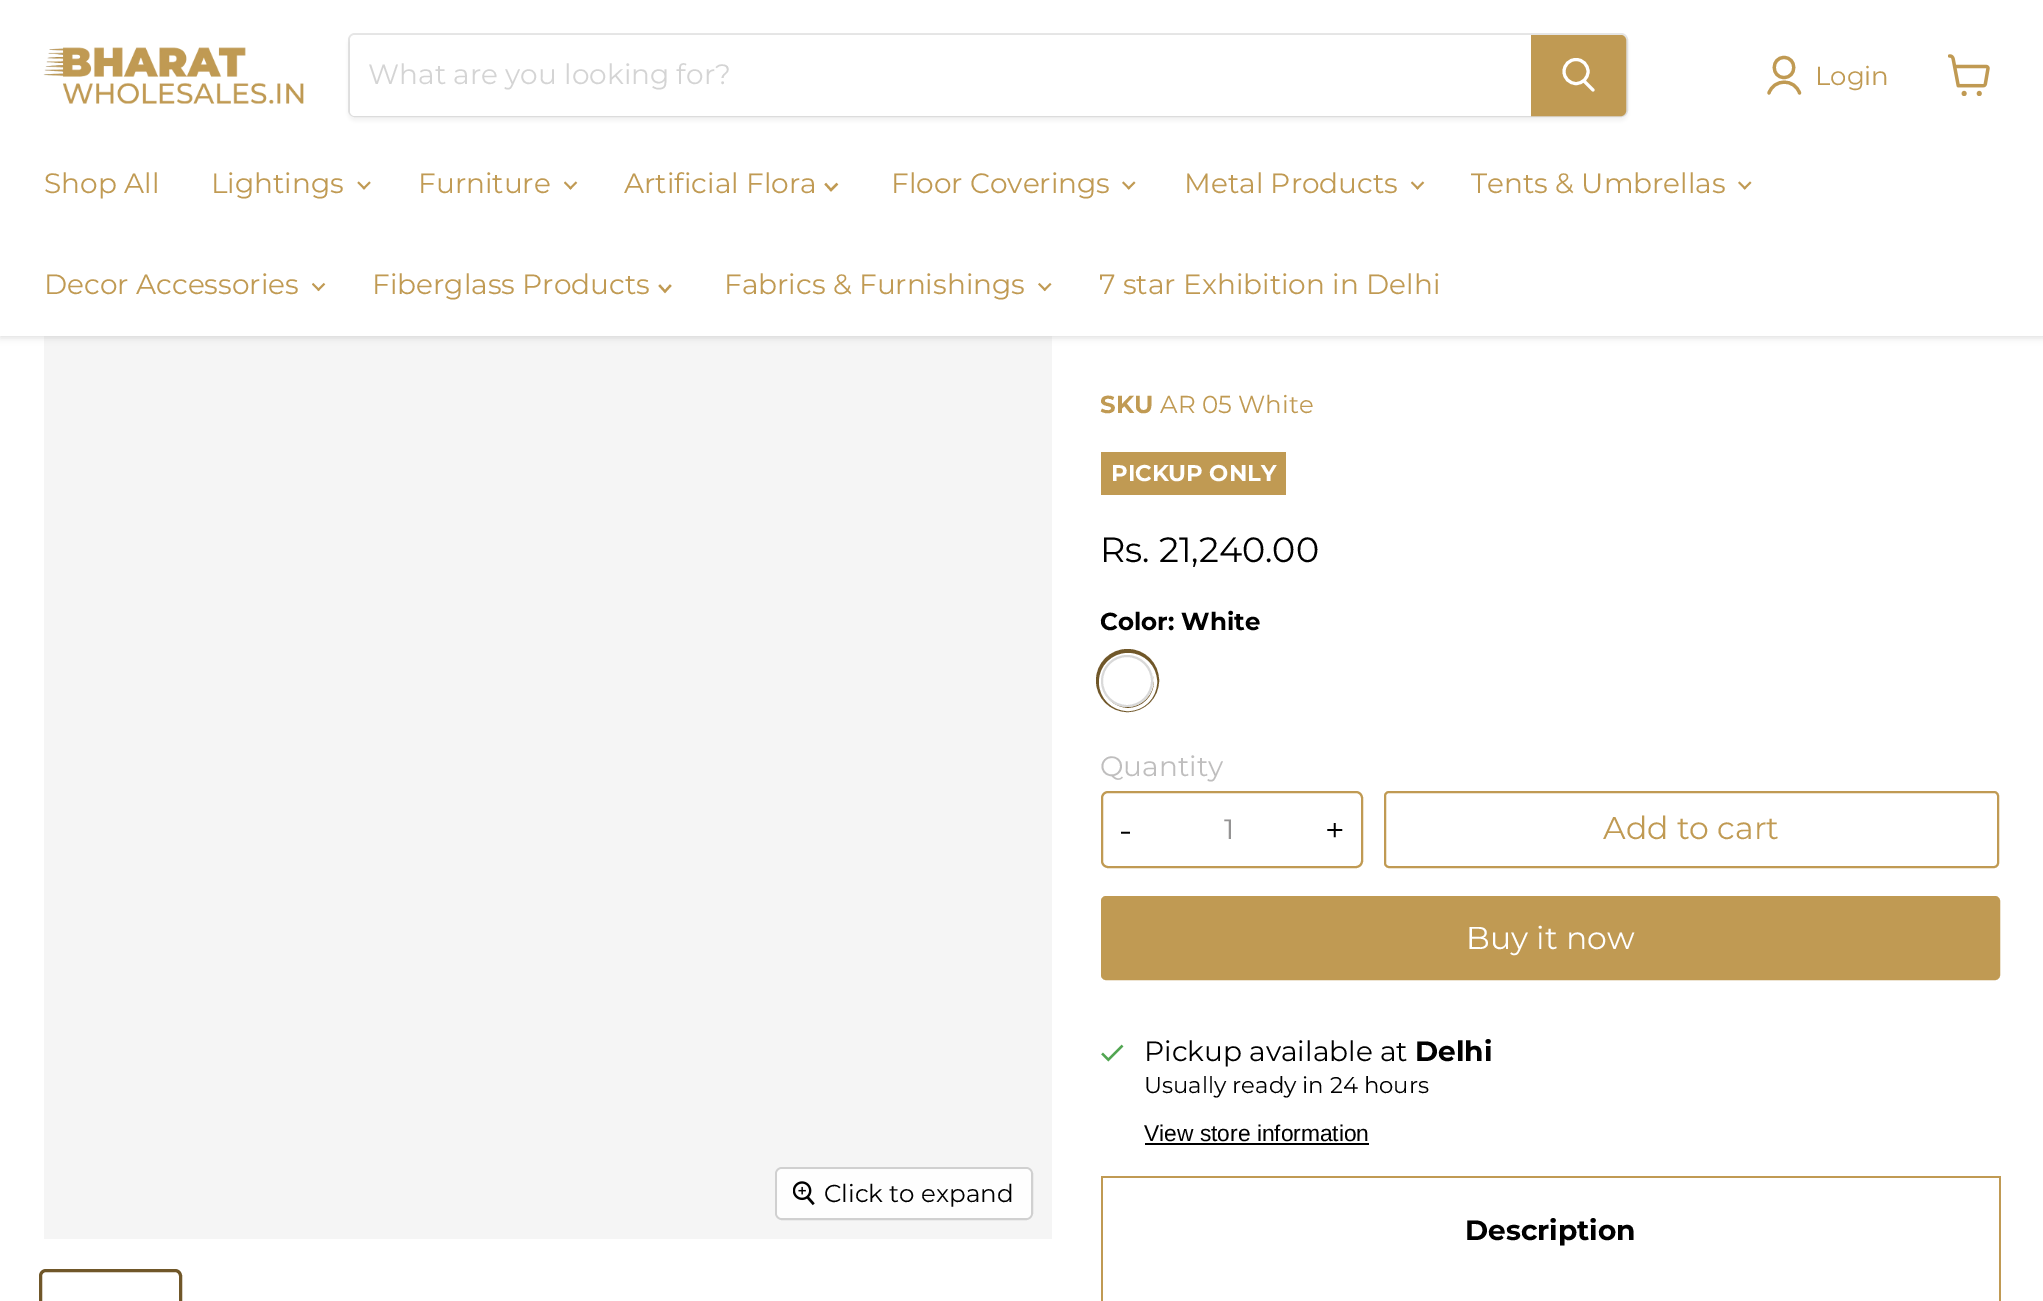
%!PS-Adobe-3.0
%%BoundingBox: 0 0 2043 1301
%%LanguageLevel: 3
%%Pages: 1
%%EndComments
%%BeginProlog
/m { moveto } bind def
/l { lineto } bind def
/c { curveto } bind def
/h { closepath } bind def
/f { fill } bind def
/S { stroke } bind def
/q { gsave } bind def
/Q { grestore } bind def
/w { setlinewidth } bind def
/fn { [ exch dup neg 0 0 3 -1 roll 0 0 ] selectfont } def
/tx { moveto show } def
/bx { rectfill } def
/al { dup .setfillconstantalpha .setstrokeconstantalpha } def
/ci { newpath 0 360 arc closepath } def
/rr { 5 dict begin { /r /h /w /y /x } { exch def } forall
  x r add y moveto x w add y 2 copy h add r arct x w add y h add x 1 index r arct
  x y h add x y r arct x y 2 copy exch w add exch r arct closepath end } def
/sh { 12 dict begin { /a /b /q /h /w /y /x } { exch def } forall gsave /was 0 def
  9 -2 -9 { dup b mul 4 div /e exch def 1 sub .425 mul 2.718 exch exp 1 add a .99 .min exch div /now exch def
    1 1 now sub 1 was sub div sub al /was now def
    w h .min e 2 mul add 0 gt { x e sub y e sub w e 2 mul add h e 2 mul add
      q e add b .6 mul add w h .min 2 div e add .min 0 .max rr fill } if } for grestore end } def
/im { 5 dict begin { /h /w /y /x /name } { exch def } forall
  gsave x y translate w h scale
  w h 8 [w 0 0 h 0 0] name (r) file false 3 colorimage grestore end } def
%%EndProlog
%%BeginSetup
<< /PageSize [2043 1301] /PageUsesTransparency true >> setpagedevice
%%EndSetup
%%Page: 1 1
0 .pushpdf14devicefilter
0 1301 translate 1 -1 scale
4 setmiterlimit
1 setgray
0 0 2043 1301 bx
0.961 setgray
44 336 1008 903 bx
0.502 setgray
0 2 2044 336 0 3.5 0.25 sh
1 setgray
0 0 2043 336 bx
(image0.raw) 43 47 261 57 im
0.502 setgray
348 37 1280 84 7 2.5 0.11 sh
0.2 al
2 w
349 34 1278 82 6 rr S
1 al
1 setgray
355 35 m 1531 35 l 1531 116 l 355 116 l 352 116 350 114 350 111 c 350 40 l 350 37 352 35 355 35 c h f
/Montserrat-Regular 28 fn
0.831 setgray
(What are you looking for?) 368 84 tx
0.753 0.604 0.325 setrgbcolor
1532 36 m 1621 36 l 1623 36 1625 38 1625 40 c 1625 111 l 1625 113 1623 115 1621 115 c 1532 115 l h q f Q
S
1 setgray
3 w
1 setlinecap
1593 90 m 1584.5 81.5 l S
0 setlinecap
1576 71.5 12 ci S
0.753 0.604 0.325 setrgbcolor
3.2 w
1 setlinecap
1 setlinejoin
1784 77.5 m 1797 77.5 1797 57.5 1784 57.5 c 1771 57.5 1771 77.5 1784 77.5 c h 1799.5 93 m 1794.5 78.5 1774 78.5 1769 93 c S
/Montserrat-Regular 26 fn
(Login) 1815 85 tx
(image1.raw) 1948 54 42 42 im
/Montserrat-Regular 28 fn
(Shop All) 44 193 tx
(Lightings) 211 193 tx
(image2.raw) 357 181 14 9 im
(Furniture) 418 193 tx
(image3.raw) 564 181 14 9 im
(Artificial Flora) 624 193 tx
2.2 w
2 setlinecap
0 setlinejoin
831 190 m 836.5 184.5 l 831 190 m 826 184.5 l S
(Floor Coverings) 891 193 tx
(image4.raw) 1122 181 14 9 im
(Metal Products) 1184 193 tx
(image3.raw) 1411 181 14 9 im
(Tents & Umbrellas) 1471 193 tx
(image4.raw) 1738 181 14 9 im
(Decor Accessories) 44 294 tx
(image5.raw) 312 282 14 10 im
(Fiberglass Products) 372 294 tx
665 291.5 m 670 286 l 665 291.5 m 660 286 l S
(Fabrics & Furnishings) 724 294 tx
(image6.raw) 1038 282 14 10 im
(7 star Exhibition in Delhi) 1099 294 tx
0.816 setgray
2 w
0 setlinecap
776 1168 256 51 6 rr S
0.9 al
1 setgray
777 1169 254 49 5 rr f
1 al
(image7.raw) 793 1181 22 25 im
/Montserrat-Regular 24.5 fn
0 setgray
(Click to expand) 824 1202 tx
0.439 0.341 0.161 setrgbcolor
3 w
40.5 1270.5 140 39 5.5 rr S
/Montserrat-Bold 24.5 fn
0.753 0.604 0.325 setrgbcolor
(SKU) 1100 413 tx
/Montserrat-Regular 24.5 fn
(AR 05 White) 1160 413 tx
1101 452 185 43 bx
/Montserrat-Bold 22.75 fn
1 setgray
(PICKUP ONLY) 1111 481 tx
/Montserrat-Regular 35 fn
0 setgray
(Rs. 21,240.00) 1100 562 tx
/Montserrat-Bold 24.5 fn
(Color: White) 1100 630 tx
0.439 0.341 0.161 setrgbcolor
5 w
1127.5 680.5 29 ci S
1 setgray
3 w
1128 682 27.5 ci S
1127 681 26 ci f
0.15 al
0 setgray
2 w
1127 681 25 ci S
/Montserrat-Regular 28 fn
1 al
0.749 0.745 0.745 setrgbcolor
(Quantity) 1100 776 tx
0.753 0.604 0.325 setrgbcolor
1102 792 260 75 6 rr S
/Montserrat-Regular 34 fn
0 setgray
(-) 1119 842 tx
/Montserrat-Regular 28 fn
0.58 0.576 0.576 setrgbcolor
(1) 1224 839 tx
/Montserrat-Regular 34 fn
0 setgray
(+) 1325 842 tx
0.753 0.604 0.325 setrgbcolor
1385 792 613 75 4 rr S
/Montserrat-Regular 31.5 fn
(Add to cart) 1603 839 tx
1102 897 897 82 4 rr q f Q
S
1 setgray
(Buy it now) 1466 949 tx
(image8.raw) 1101 1044 23 18 im
/Montserrat-Regular 28 fn
0 setgray
(Pickup available at) 1144 1061 tx
/Montserrat-Bold 28 fn
(Delhi) 1415 1061 tx
/Montserrat-Regular 22.75 fn
(Usually ready in 24 hours) 1144 1093 tx
/LiberationSans-Regular 22.75 fn
(View store information) 1144 1141 tx
1145 1143 224 2 bx
0.753 0.604 0.325 setrgbcolor
1101 1176 899 2 bx
1999 1176 2 125 bx
1101 1176 2 125 bx
/Montserrat-Bold 28 fn
0 setgray
(Description) 1465 1240 tx
.poppdf14devicefilter showpage
%%EOF
